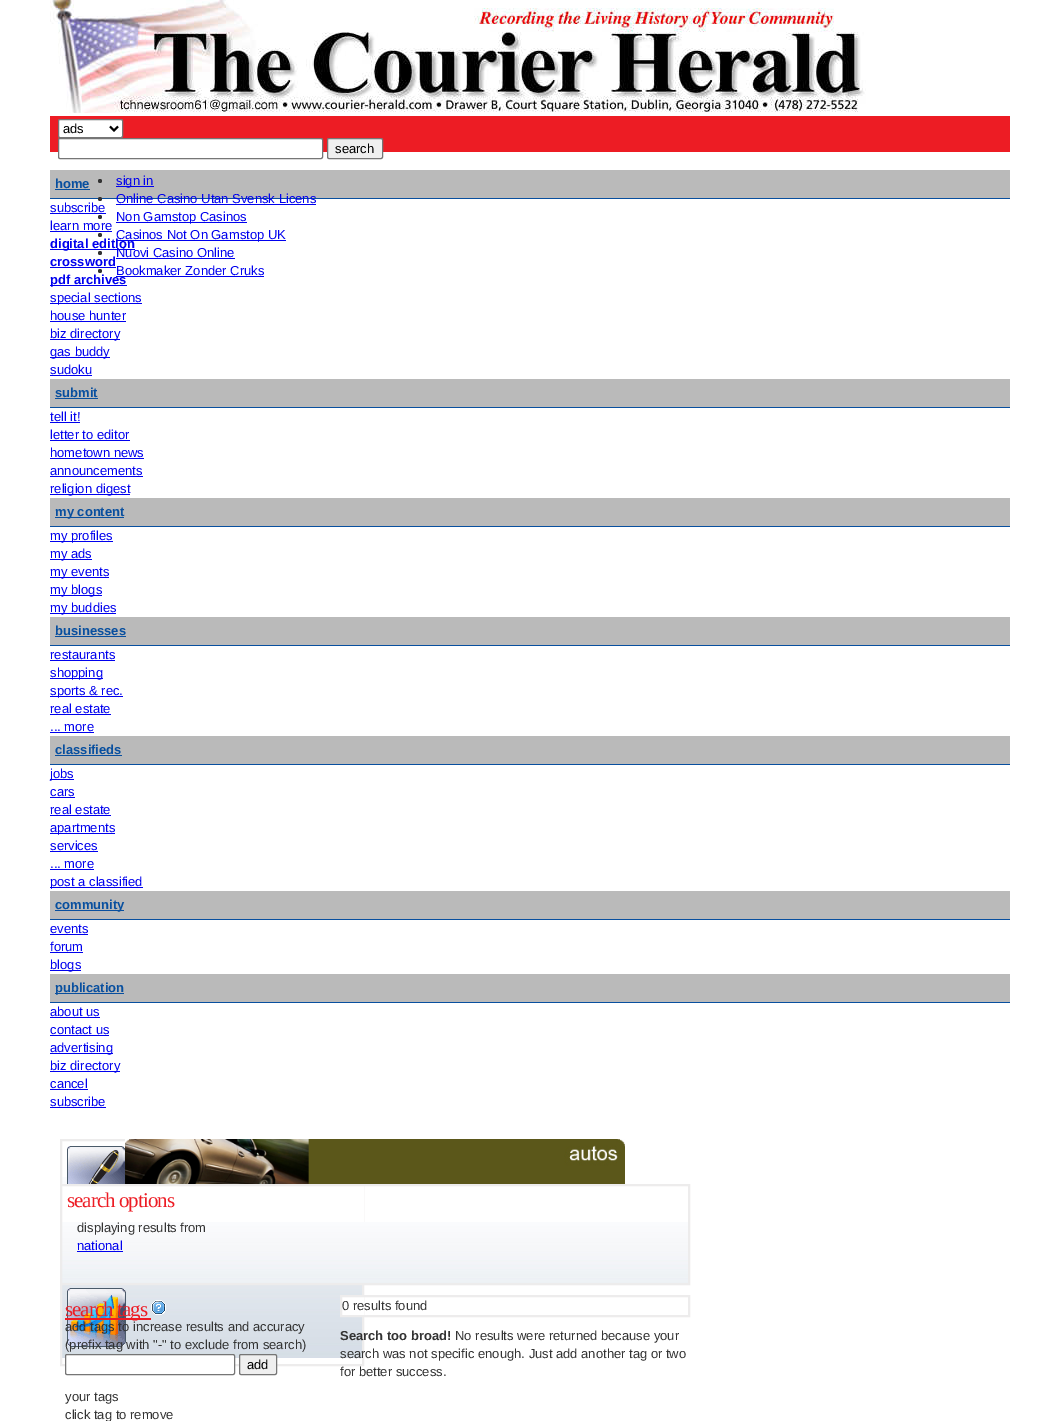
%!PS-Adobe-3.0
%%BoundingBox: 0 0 1060 1421
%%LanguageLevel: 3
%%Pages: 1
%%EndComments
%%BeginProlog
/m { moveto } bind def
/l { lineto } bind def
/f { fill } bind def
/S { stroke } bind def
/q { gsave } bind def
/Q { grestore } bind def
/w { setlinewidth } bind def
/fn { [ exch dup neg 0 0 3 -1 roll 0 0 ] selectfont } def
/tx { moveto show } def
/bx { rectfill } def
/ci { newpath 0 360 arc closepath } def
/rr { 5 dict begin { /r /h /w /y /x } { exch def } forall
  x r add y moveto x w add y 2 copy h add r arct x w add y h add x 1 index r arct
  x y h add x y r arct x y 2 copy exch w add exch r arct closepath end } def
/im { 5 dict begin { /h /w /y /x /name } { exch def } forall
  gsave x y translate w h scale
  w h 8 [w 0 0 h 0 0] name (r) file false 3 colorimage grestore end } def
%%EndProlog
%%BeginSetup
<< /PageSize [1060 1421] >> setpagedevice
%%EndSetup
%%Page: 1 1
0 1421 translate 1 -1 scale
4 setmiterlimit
1 setgray
0 0 1060 1421 bx
(image0.raw) 50 0 816 113 im
0.929 0.11 0.141 setrgbcolor
50 116 960 36 bx
1 setgray
58.5 119.5 64 18 1.5 rr q f Q
0.463 setgray
S
0 setgray
2 w
110 126.5 m 114 130.5 l 118 126.5 l S
/LiberationSans-Regular 13 fn
(ads) 63 133 tx
1 setgray
58.5 138.5 264 20 1.5 rr q f Q
0.463 setgray
1 w
S
0.937 setgray
327.5 138.5 55 20 1.5 rr q f Q
0.463 setgray
S
0 setgray
(search) 335 153 tx
0.729 setgray
50 170 960 28 bx
0.2 setgray
100 181 2 ci f
0 0 0.933 setrgbcolor
116 186 38 1 bx
(sign in) 116 185 tx
0.031 0.31 0.624 setrgbcolor
50 198 960 1 bx
0.2 setgray
100 199 2 ci f
0 0 0.933 setrgbcolor
(Online Casino Utan Svensk Licens) 116 203 tx
116 204 200 1 bx
0.2 setgray
100 217 2 ci f
0 0 0.933 setrgbcolor
116 222 131 1 bx
(Non Gamstop Casinos) 116 221 tx
0.2 setgray
100 235 2 ci f
0 0 0.933 setrgbcolor
116 240 170 1 bx
(Casinos Not On Gamstop UK) 116 239 tx
0.2 setgray
100 253 2 ci f
0 0 0.933 setrgbcolor
(Nuovi Casino Online) 116 257 tx
116 258 119 1 bx
0.2 setgray
100 271 2 ci f
0 0 0.933 setrgbcolor
(Bookmaker Zonder Cruks) 116 275 tx
116 276 148 1 bx
/LiberationSans-Bold 13 fn
0.031 0.31 0.624 setrgbcolor
(home) 55 188 tx
55 189 35 1 bx
/LiberationSans-Regular 13 fn
0 0 0.933 setrgbcolor
(subscribe) 50 212 tx
50 213 56 1 bx
(learn more) 50 230 tx
50 231 62 1 bx
50 249 85 1 bx
/LiberationSans-Bold 13 fn
(digital edition) 50 248 tx
(crossword) 50 266 tx
50 267 66 1 bx
50 285 77 1 bx
(pdf archives) 50 284 tx
50 303 92 1 bx
/LiberationSans-Regular 13 fn
(special sections) 50 302 tx
(house hunter) 50 320 tx
50 321 76 1 bx
50 339 70 1 bx
(biz directory) 50 338 tx
50 357 60 1 bx
(gas buddy) 50 356 tx
(sudoku) 50 374 tx
50 375 42 1 bx
0.729 setgray
50 379 960 28 bx
0.031 0.31 0.624 setrgbcolor
50 407 960 1 bx
/LiberationSans-Bold 13 fn
(submit) 55 397 tx
55 398 43 1 bx
/LiberationSans-Regular 13 fn
0 0 0.933 setrgbcolor
(tell it!) 50 421 tx
50 422 30 1 bx
(letter to editor) 50 439 tx
50 440 80 1 bx
(hometown news) 50 457 tx
50 458 94 1 bx
(announcements) 50 475 tx
50 476 93 1 bx
50 494 80 1 bx
(religion digest) 50 493 tx
0.729 setgray
50 498 960 28 bx
0.031 0.31 0.624 setrgbcolor
50 526 960 1 bx
55 517 69 1 bx
/LiberationSans-Bold 13 fn
(my content) 55 516 tx
0 0 0.933 setrgbcolor
50 541 63 1 bx
/LiberationSans-Regular 13 fn
(my profiles) 50 540 tx
50 559 42 1 bx
(my ads) 50 558 tx
50 577 59 1 bx
(my events) 50 576 tx
50 595 52 1 bx
(my blogs) 50 594 tx
50 613 66 1 bx
(my buddies) 50 612 tx
0.729 setgray
50 617 960 28 bx
0.031 0.31 0.624 setrgbcolor
50 645 960 1 bx
/LiberationSans-Bold 13 fn
(businesses) 55 635 tx
55 636 71 1 bx
/LiberationSans-Regular 13 fn
0 0 0.933 setrgbcolor
(restaurants) 50 659 tx
50 660 65 1 bx
50 678 53 1 bx
(shopping) 50 677 tx
50 696 73 1 bx
(sports & rec.) 50 695 tx
(real estate) 50 713 tx
50 714 61 1 bx
(... more) 50 731 tx
50 732 44 1 bx
0.729 setgray
50 736 960 28 bx
0.031 0.31 0.624 setrgbcolor
50 764 960 1 bx
/LiberationSans-Bold 13 fn
(classifieds) 55 754 tx
55 755 67 1 bx
0 0 0.933 setrgbcolor
50 779 24 1 bx
/LiberationSans-Regular 13 fn
(jobs) 50 778 tx
(cars) 50 796 tx
50 797 25 1 bx
(real estate) 50 814 tx
50 815 61 1 bx
50 833 65 1 bx
(apartments) 50 832 tx
(services) 50 850 tx
50 851 48 1 bx
(... more) 50 868 tx
50 869 44 1 bx
50 887 93 1 bx
(post a classified) 50 886 tx
0.729 setgray
50 891 960 28 bx
0.031 0.31 0.624 setrgbcolor
50 919 960 1 bx
55 910 69 1 bx
/LiberationSans-Bold 13 fn
(community) 55 909 tx
/LiberationSans-Regular 13 fn
0 0 0.933 setrgbcolor
(events) 50 933 tx
50 934 38 1 bx
(forum) 50 951 tx
50 952 33 1 bx
50 970 31 1 bx
(blogs) 50 969 tx
0.729 setgray
50 974 960 28 bx
0.031 0.31 0.624 setrgbcolor
50 1002 960 1 bx
55 993 69 1 bx
/LiberationSans-Bold 13 fn
(publication) 55 992 tx
/LiberationSans-Regular 13 fn
0 0 0.933 setrgbcolor
(about us) 50 1016 tx
50 1017 50 1 bx
(contact us) 50 1034 tx
50 1035 59 1 bx
50 1053 63 1 bx
(advertising) 50 1052 tx
50 1071 70 1 bx
(biz directory) 50 1070 tx
(cancel) 50 1088 tx
50 1089 38 1 bx
(subscribe) 50 1106 tx
50 1107 56 1 bx
(image1.raw) 62 1177 300 181 im
0.929 0.925 0.925 setrgbcolor
2 w
61 1140 302 225 rectstroke
(image2.raw) 67 1146 58 38 im
(image3.raw) 67 1288 59 59 im
(image4.raw) 125 1139 500 45 im
1 setgray
62 1186 302 36 bx
(image5.raw) 62 1222 626 61 im
0.929 0.925 0.925 setrgbcolor
61 1185 628 99 rectstroke
/LiberationSerif-Regular 21 fn
0.929 0.11 0.141 setrgbcolor
67 1207 m -1 0 (search options) ashow
/LiberationSans-Regular 13 fn
0.2 setgray
(displaying results from) 77 1232 tx
0 0 0.933 setrgbcolor
(national) 77 1250 tx
77 1251 46 1 bx
0.929 0.11 0.141 setrgbcolor
65 1318 86 2 bx
/LiberationSerif-Regular 21 fn
65 1316 m -1 0 (search tags) ashow
(image6.raw) 151 1300 15 15 im
/LiberationSans-Regular 13 fn
0.2 setgray
(add tags to increase results and accuracy) 65 1331 tx
(\(prefix tag with "-" to exclude from search\)) 65 1349 tx
1 setgray
65.5 1354.5 169 20 1.5 rr q f Q
0.463 setgray
1 w
S
0.937 setgray
239.5 1354.5 37 20 1.5 rr q f Q
0.463 setgray
S
0 setgray
(add) 247 1369 tx
0.2 setgray
(your tags) 65 1401 tx
(click tag to remove) 65 1419 tx
1 setgray
342 1297 22 18 bx
0.929 0.925 0.925 setrgbcolor
2 w
341 1296 348 20 rectstroke
0.2 setgray
(0 results found) 342 1310 tx
/LiberationSans-Bold 13 fn
(Search too broad!) 340 1340 tx
/LiberationSans-Regular 13 fn
(No results were returned because your) 455 1340 tx
(search was not specific enough. Just add another tag or two) 340 1358 tx
(for better success.) 340 1376 tx
showpage
%%EOF
